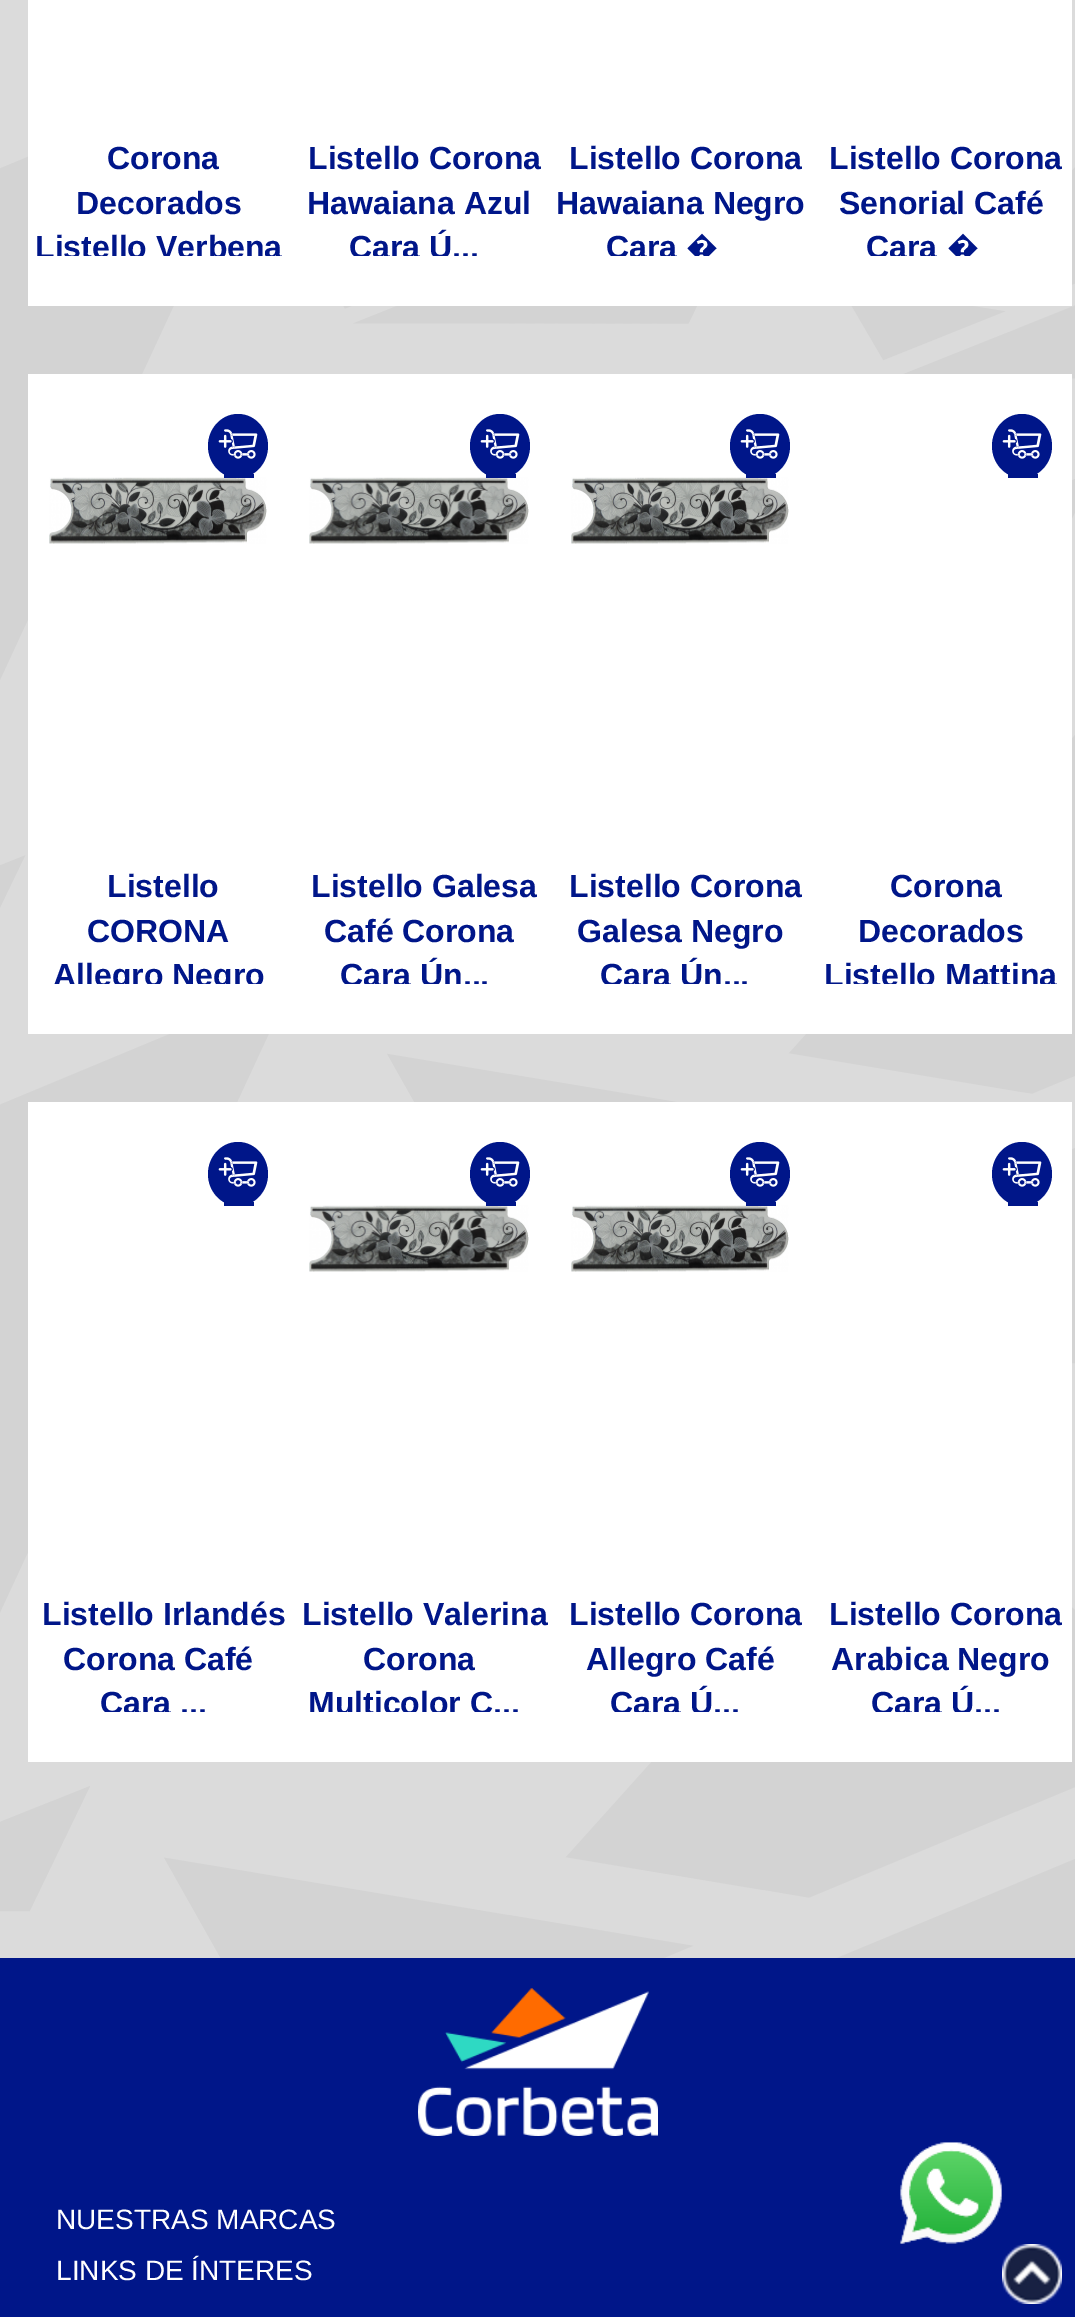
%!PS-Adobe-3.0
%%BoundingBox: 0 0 1075 2317
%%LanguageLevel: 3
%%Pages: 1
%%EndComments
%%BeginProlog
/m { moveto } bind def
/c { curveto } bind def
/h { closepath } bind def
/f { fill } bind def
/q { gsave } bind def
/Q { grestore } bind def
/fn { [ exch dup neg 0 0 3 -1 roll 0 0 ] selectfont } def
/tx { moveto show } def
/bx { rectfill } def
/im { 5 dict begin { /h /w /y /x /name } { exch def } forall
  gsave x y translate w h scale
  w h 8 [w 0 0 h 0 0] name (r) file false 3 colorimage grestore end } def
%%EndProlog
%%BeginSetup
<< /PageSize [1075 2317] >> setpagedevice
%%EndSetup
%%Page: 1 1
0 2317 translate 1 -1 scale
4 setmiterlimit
1 setgray
0 0 1075 2317 bx
(image0.raw) 0 0 1075 1958 im
28 0 1044 306 bx
/LiberationSans-Bold 32 fn
0 0.086 0.537 setrgbcolor
(Corona) 107 169 tx
(Decorados) 76 214 tx
q
28 136 260 120 rectclip
(Listello Verbena) 35 258 tx
Q
(Listello Corona) 308 169 tx
(Hawaiana Azul) 307 214 tx
q
288 136 262 120 rectclip
(Cara Ú...) 349 258 tx
Q
(Listello Corona) 569 169 tx
(Hawaiana Negro) 556 214 tx
q
550 136 260 120 rectclip
(Cara) 606 258 tx
/NotoSans-Bold 32 fn
(�) 686 258 tx
Q
(Listello Corona) 829 169 tx
(Senorial Café) 839 214 tx
q
810 136 262 120 rectclip
(Cara) 866 258 tx
/NotoSans-Bold 32 fn
(�) 947 258 tx
Q
1 setgray
28 374 1044 660 bx
(image1.raw) 49 477 218 67 im
0 0.086 0.537 setrgbcolor
238 414 m 254.5 414 268 428.5 268 446 c 268 463.5 254.5 478 238 478 c 221.5 478 208 463.5 208 446 c 208 428.5 221.5 414 238 414 c h f
(image2.raw) 218 429 40 30 im
224 474 30 4 bx
(Listello) 107 897 tx
(CORONA) 87 942 tx
q
28 864 260 120 rectclip
(Allegro Negro) 53 986 tx
Q
(image3.raw) 309 477 220 67 im
500 414 m 516.5 414 530 428.5 530 446 c 530 463.5 516.5 478 500 478 c 483.5 478 470 463.5 470 446 c 470 428.5 483.5 414 500 414 c h f
(image2.raw) 480 429 40 30 im
486 474 30 4 bx
(Listello Galesa) 311 897 tx
(Café Corona) 324 942 tx
q
288 864 262 120 rectclip
(Cara Ún...) 340 986 tx
Q
(image1.raw) 571 477 218 67 im
760 414 m 776.5 414 790 428.5 790 446 c 790 463.5 776.5 478 760 478 c 743.5 478 730 463.5 730 446 c 730 428.5 743.5 414 760 414 c h f
(image2.raw) 740 429 40 30 im
746 474 30 4 bx
(Listello Corona) 569 897 tx
(Galesa Negro) 577 942 tx
q
550 864 260 120 rectclip
(Cara Ún...) 600 986 tx
Q
1022 414 m 1038.5 414 1052 428.5 1052 446 c 1052 463.5 1038.5 478 1022 478 c 1005.5 478 992 463.5 992 446 c 992 428.5 1005.5 414 1022 414 c h f
(image2.raw) 1002 429 40 30 im
1008 474 30 4 bx
(Corona) 890 897 tx
(Decorados) 858 942 tx
q
810 864 262 120 rectclip
(Listello Mattina) 824 986 tx
Q
1 setgray
28 1102 1044 660 bx
0 0.086 0.537 setrgbcolor
238 1142 m 254.5 1142 268 1156.5 268 1174 c 268 1191.5 254.5 1206 238 1206 c 221.5 1206 208 1191.5 208 1174 c 208 1156.5 221.5 1142 238 1142 c h f
(image2.raw) 218 1157 40 30 im
224 1202 30 4 bx
(Listello Irlandés) 42 1625 tx
(Corona Café) 63 1670 tx
q
28 1592 260 120 rectclip
(Cara ...) 100 1714 tx
Q
(image3.raw) 309 1205 220 67 im
500 1142 m 516.5 1142 530 1156.5 530 1174 c 530 1191.5 516.5 1206 500 1206 c 483.5 1206 470 1191.5 470 1174 c 470 1156.5 483.5 1142 500 1142 c h f
(image2.raw) 480 1157 40 30 im
486 1202 30 4 bx
(Listello Valerina) 302 1625 tx
(Corona) 363 1670 tx
q
288 1592 262 120 rectclip
(Multicolor C...) 308 1714 tx
Q
(image1.raw) 571 1205 218 67 im
760 1142 m 776.5 1142 790 1156.5 790 1174 c 790 1191.5 776.5 1206 760 1206 c 743.5 1206 730 1191.5 730 1174 c 730 1156.5 743.5 1142 760 1142 c h f
(image2.raw) 740 1157 40 30 im
746 1202 30 4 bx
(Listello Corona) 569 1625 tx
(Allegro Café) 586 1670 tx
q
550 1592 260 120 rectclip
(Cara Ú...) 610 1714 tx
Q
1022 1142 m 1038.5 1142 1052 1156.5 1052 1174 c 1052 1191.5 1038.5 1206 1022 1206 c 1005.5 1206 992 1191.5 992 1174 c 992 1156.5 1005.5 1142 1022 1142 c h f
(image2.raw) 1002 1157 40 30 im
1008 1202 30 4 bx
(Listello Corona) 829 1625 tx
(Arabica Negro) 831 1670 tx
q
810 1592 262 120 rectclip
(Cara Ú...) 871 1714 tx
Q
0 1958 1075 359 bx
(image4.raw) 1002 2244 60 60 im
(image5.raw) 418 1988 240 148 im
/LiberationSans-Regular 28 fn
1 setgray
(NUESTRAS MARCAS) 56 2229 tx
(LINKS DE ÍNTERES) 56 2280 tx
(image6.raw) 900 2142 102 102 im
showpage
%%EOF
